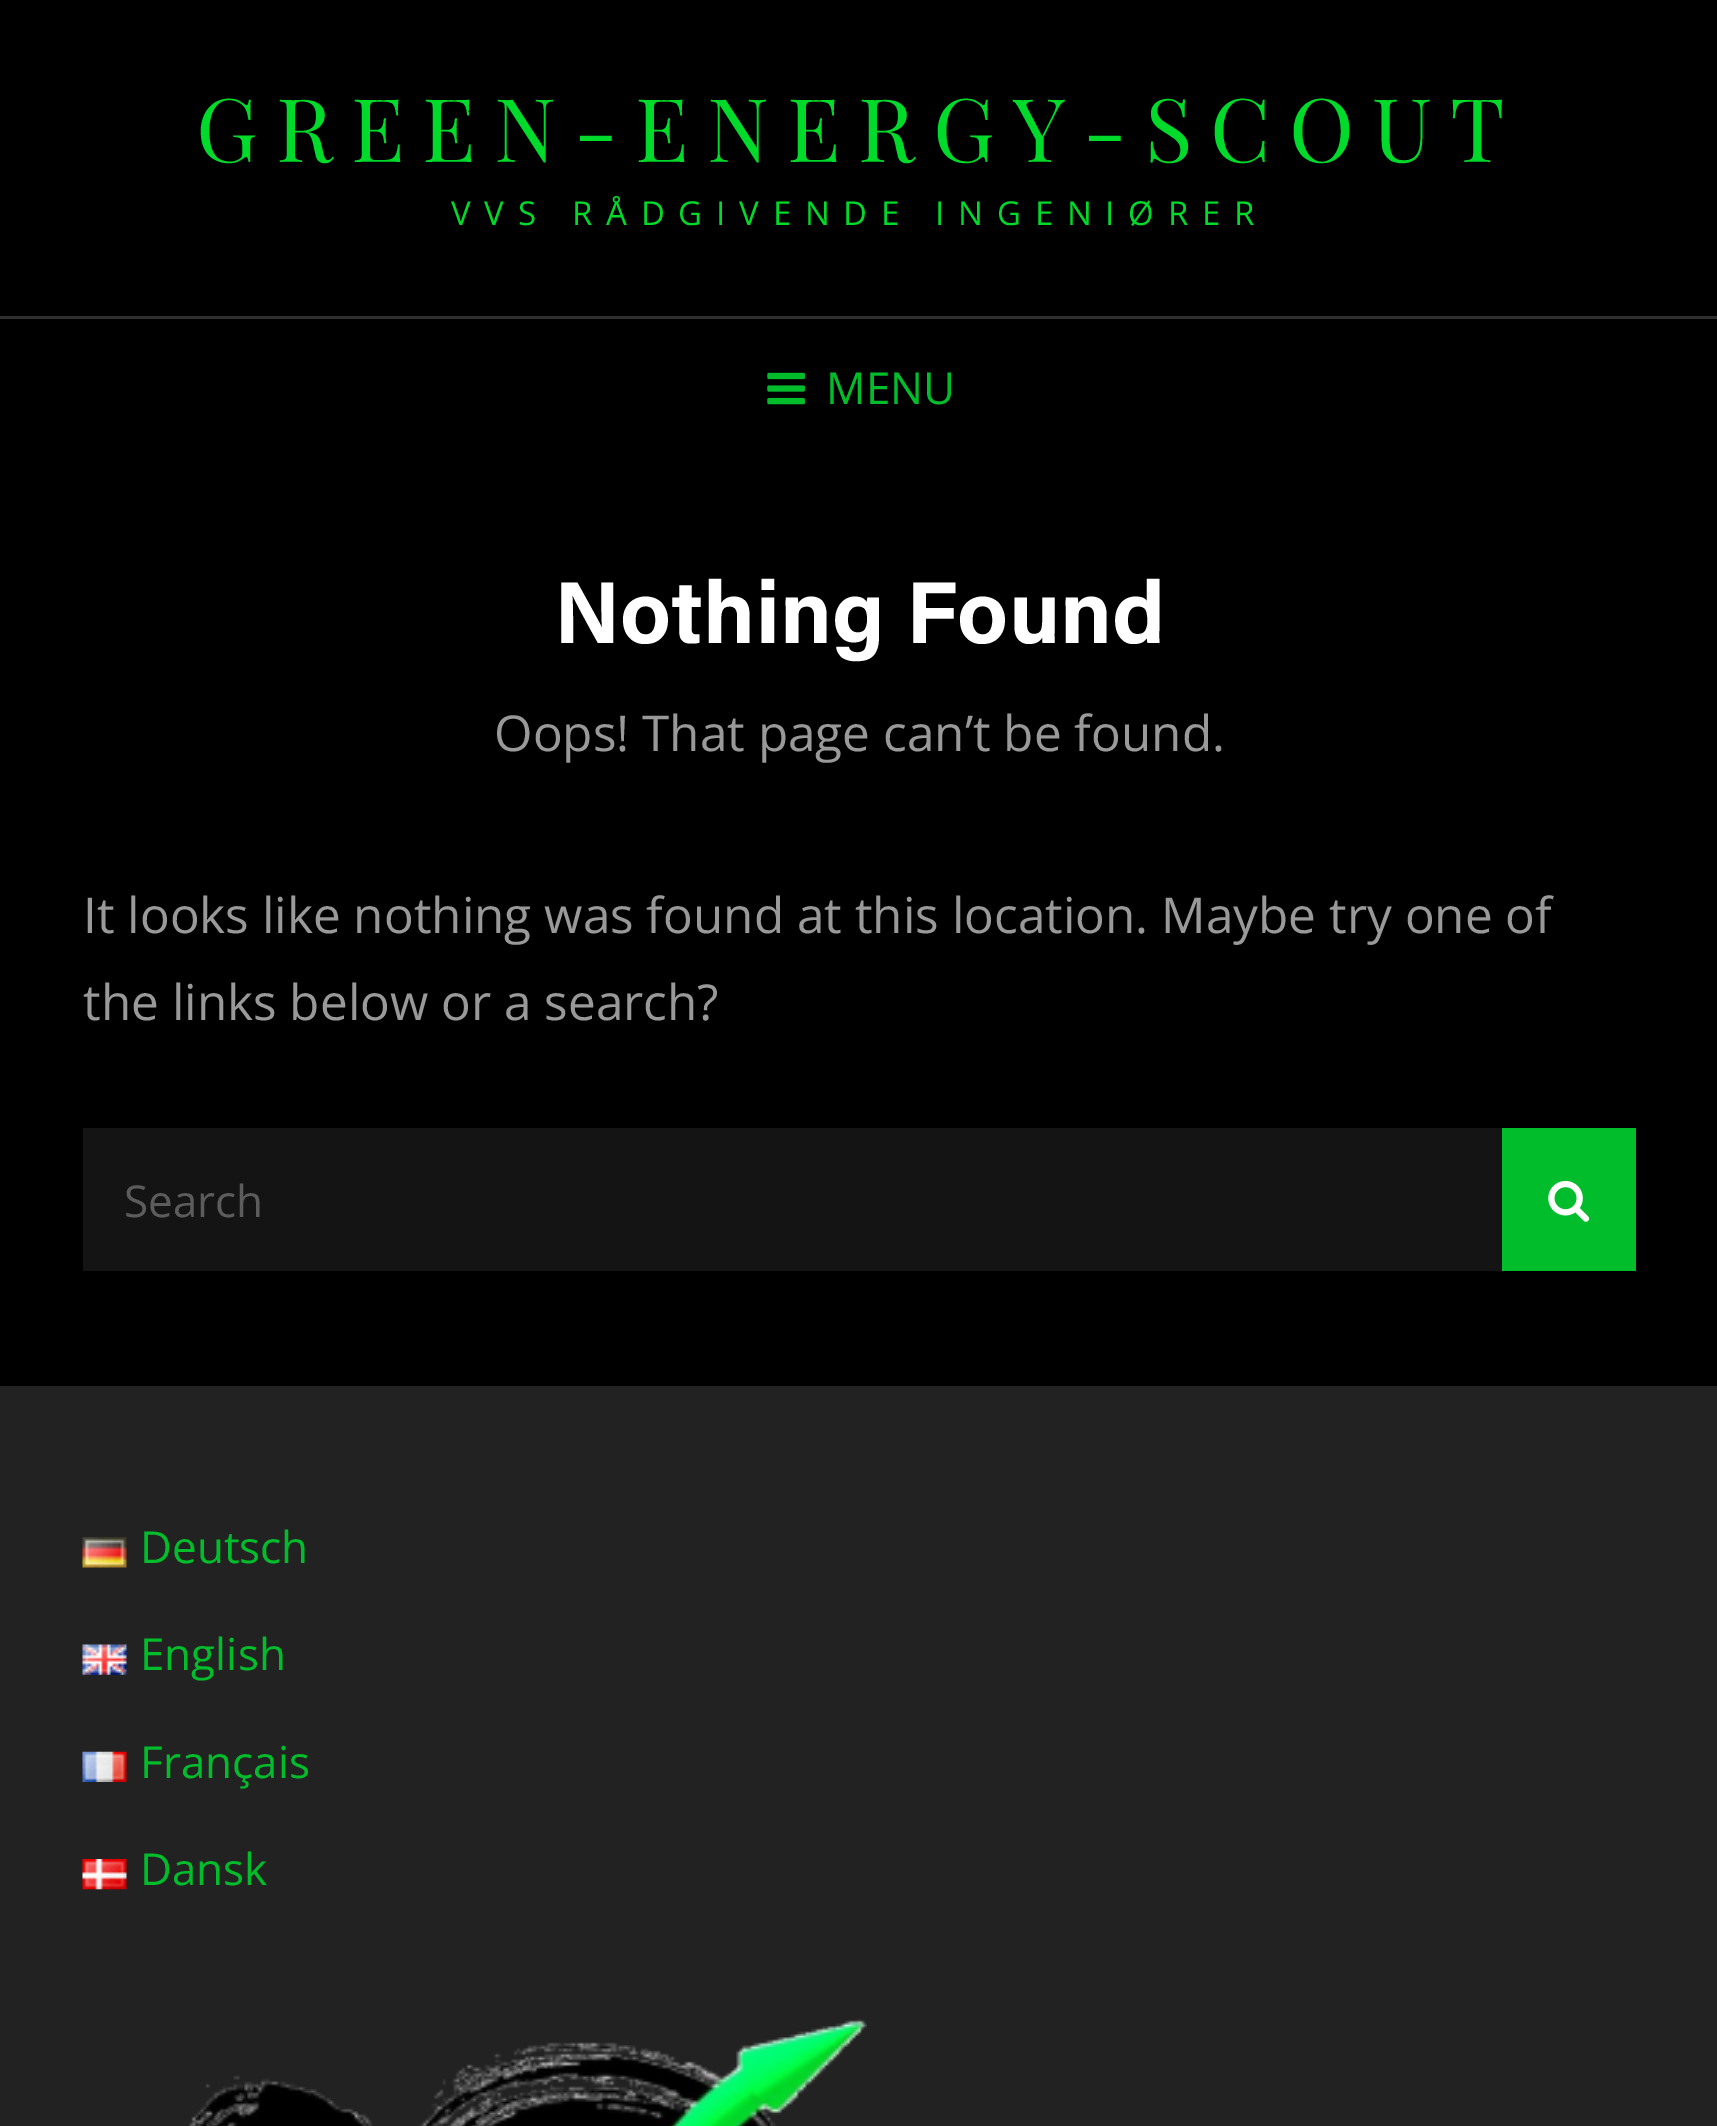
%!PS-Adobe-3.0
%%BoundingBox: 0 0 1717 2126
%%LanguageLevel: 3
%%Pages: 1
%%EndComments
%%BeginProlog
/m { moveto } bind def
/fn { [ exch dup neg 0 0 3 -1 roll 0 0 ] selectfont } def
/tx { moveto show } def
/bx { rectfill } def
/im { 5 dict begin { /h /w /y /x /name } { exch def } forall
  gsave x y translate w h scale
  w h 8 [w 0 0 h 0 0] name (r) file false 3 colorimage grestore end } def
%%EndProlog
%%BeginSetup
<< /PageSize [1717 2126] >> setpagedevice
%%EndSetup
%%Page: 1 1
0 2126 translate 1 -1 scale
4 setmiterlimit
0 setgray
0 0 1717 2126 bx
/PlayfairDisplay-Regular 88 fn
0 0.859 0.169 setrgbcolor
196 162 m 17.9 0 (GREEN-ENERGY-SCOUT) ashow
/OpenSans-Regular 33 fn
451 225 m 13.75 0 (VVS RÅDGIVENDE INGENIØRER) ashow
0.184 setgray
0 316 1717 3 bx
(image0.raw) 767 372 38 33 im
/OpenSans-Regular 44 fn
0.004 0.741 0.169 setrgbcolor
(MENU) 826 404 tx
/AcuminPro-Bold 88 fn
1 setgray
(Nothing Found) 554 643 tx
/OpenSans-Regular 49.5 fn
0.6 setgray
(Oops! That page can’t be found.) 494 751 tx
(It looks like nothing was found at this location. Maybe try one of) 83 933 tx
(the links below or a search?) 83 1020 tx
0.078 setgray
83 1128 1419 143 bx
/OpenSans-Regular 44 fn
0.361 setgray
(Search) 124 1217 tx
0.004 0.741 0.169 setrgbcolor
1502 1128 134 143 bx
(image1.raw) 1548 1180 42 42 im
0.133 setgray
0 1386 1717 740 bx
(image2.raw) 82 1537 45 31 im
0.004 0.741 0.169 setrgbcolor
(Deutsch) 140 1563 tx
(image3.raw) 82 1644 45 31 im
(English) 140 1670 tx
(image4.raw) 82 1751 45 31 im
(Français) 140 1778 tx
(image5.raw) 82 1859 45 31 im
(Dansk) 140 1885 tx
(image6.raw) 189 2018 678 108 im
showpage
%%EOF
